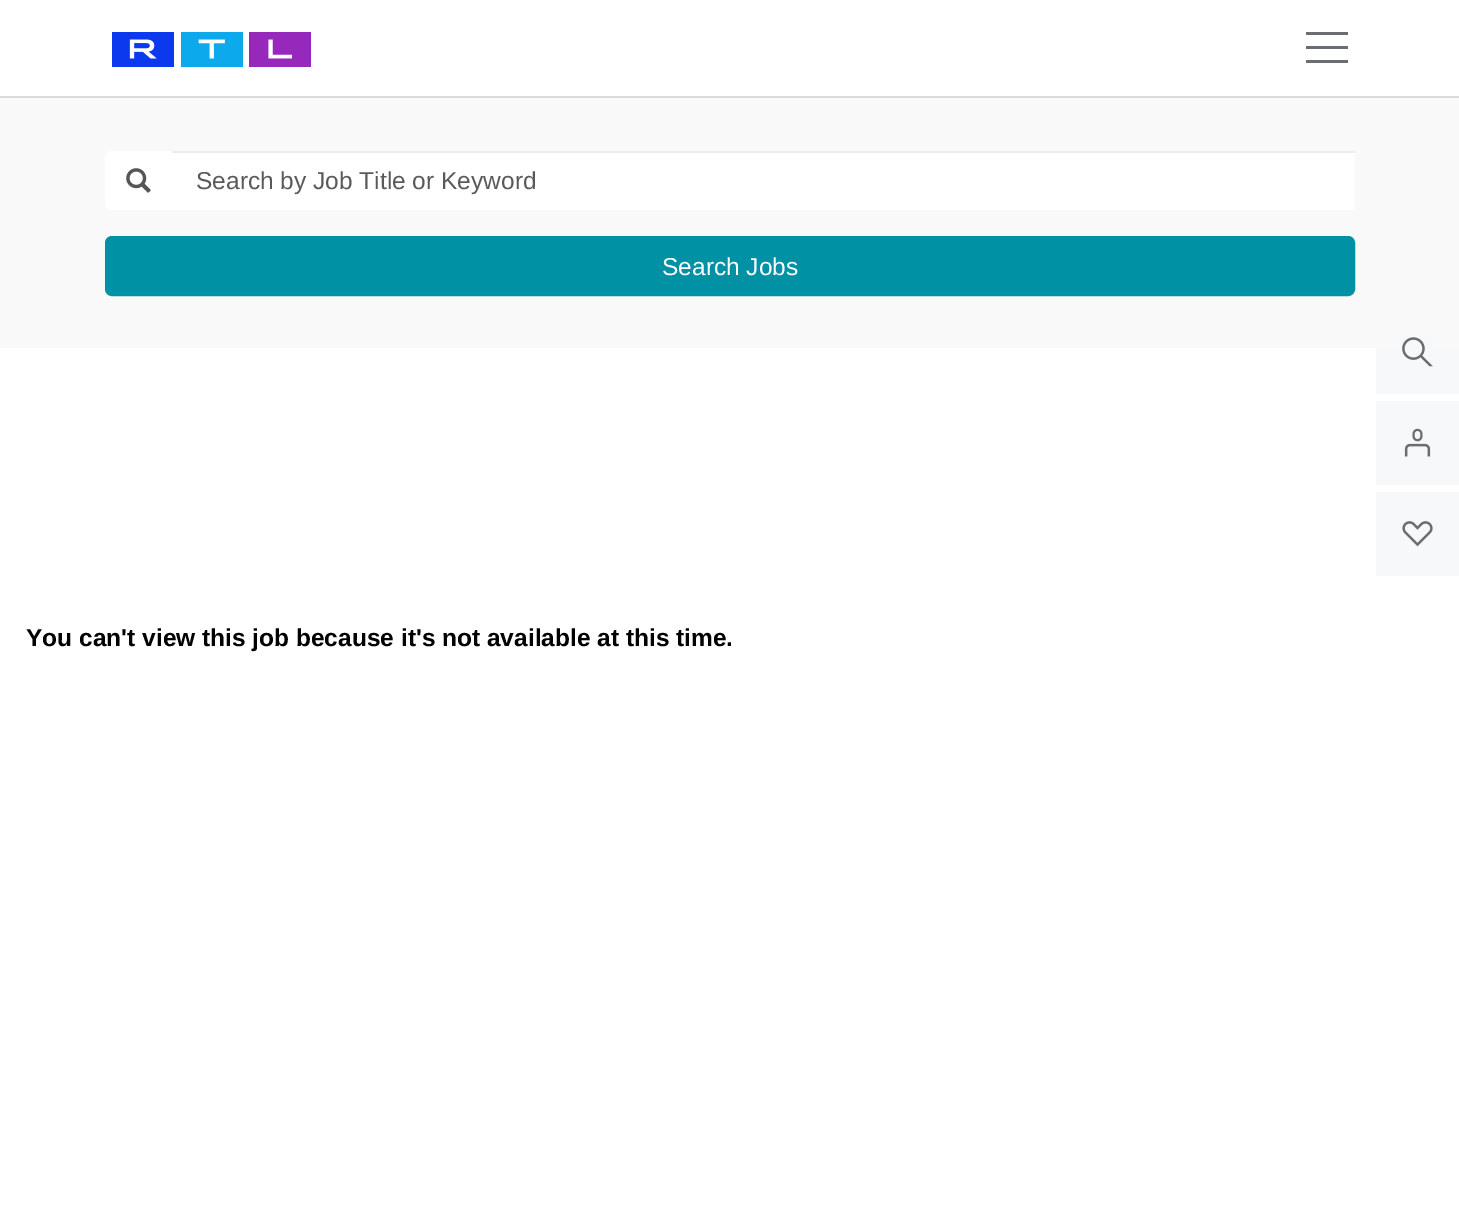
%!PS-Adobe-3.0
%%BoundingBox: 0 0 1459 1231
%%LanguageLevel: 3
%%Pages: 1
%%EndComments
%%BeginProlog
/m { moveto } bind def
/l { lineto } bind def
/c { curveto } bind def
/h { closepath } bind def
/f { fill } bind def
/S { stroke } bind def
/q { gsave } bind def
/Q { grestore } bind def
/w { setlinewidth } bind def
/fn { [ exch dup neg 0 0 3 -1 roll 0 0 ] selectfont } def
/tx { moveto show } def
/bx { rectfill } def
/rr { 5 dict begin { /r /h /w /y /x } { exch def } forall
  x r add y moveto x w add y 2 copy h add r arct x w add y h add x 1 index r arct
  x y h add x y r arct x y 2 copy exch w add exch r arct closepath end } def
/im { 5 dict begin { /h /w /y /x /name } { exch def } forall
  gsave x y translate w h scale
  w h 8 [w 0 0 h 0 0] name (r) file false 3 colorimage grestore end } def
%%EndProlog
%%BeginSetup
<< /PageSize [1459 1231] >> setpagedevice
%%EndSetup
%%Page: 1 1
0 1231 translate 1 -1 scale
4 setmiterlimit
1 setgray
0 0 1459 1231 bx
0.847 0.855 0.867 setrgbcolor
0 96 1459 2 bx
(image0.raw) 112 32 199 35 im
0.416 0.427 0.443 setrgbcolor
1306 32 42 3 bx
1306 46 42 3 bx
1306 60 42 3 bx
0.969 0.973 0.976 setrgbcolor
1376 348 83 46 bx
0.976 setgray
0 98 1459 250 bx
(image1.raw) 1402 337 31 30 im
0.969 0.973 0.976 setrgbcolor
1376 401 83 84 bx
(image2.raw) 1404 428 27 29 im
1376 492 83 84 bx
(image3.raw) 1402 521 31 26 im
1 setgray
112 151 m 172 151 l 172 210 l 112 210 l 108 210 105 207 105 203 c 105 158 l 105 154 108 151 112 151 c h f
(image4.raw) 126 168 25 25 im
172 153 1183 57 bx
0.925 setgray
172 151 1183 2 bx
/LiberationSans-Regular 24.5 fn
0.349 setgray
(Search by Job Title or Keyword) 196 189 tx
0 0.569 0.643 setrgbcolor
106 237 1248 58 6 rr q f Q
2 w
S
1 setgray
(Search Jobs) 662 275 tx
/LiberationSans-Bold 24.5 fn
0 setgray
(You can't view this job because it's not available at this time.) 26 646 tx
showpage
%%EOF
